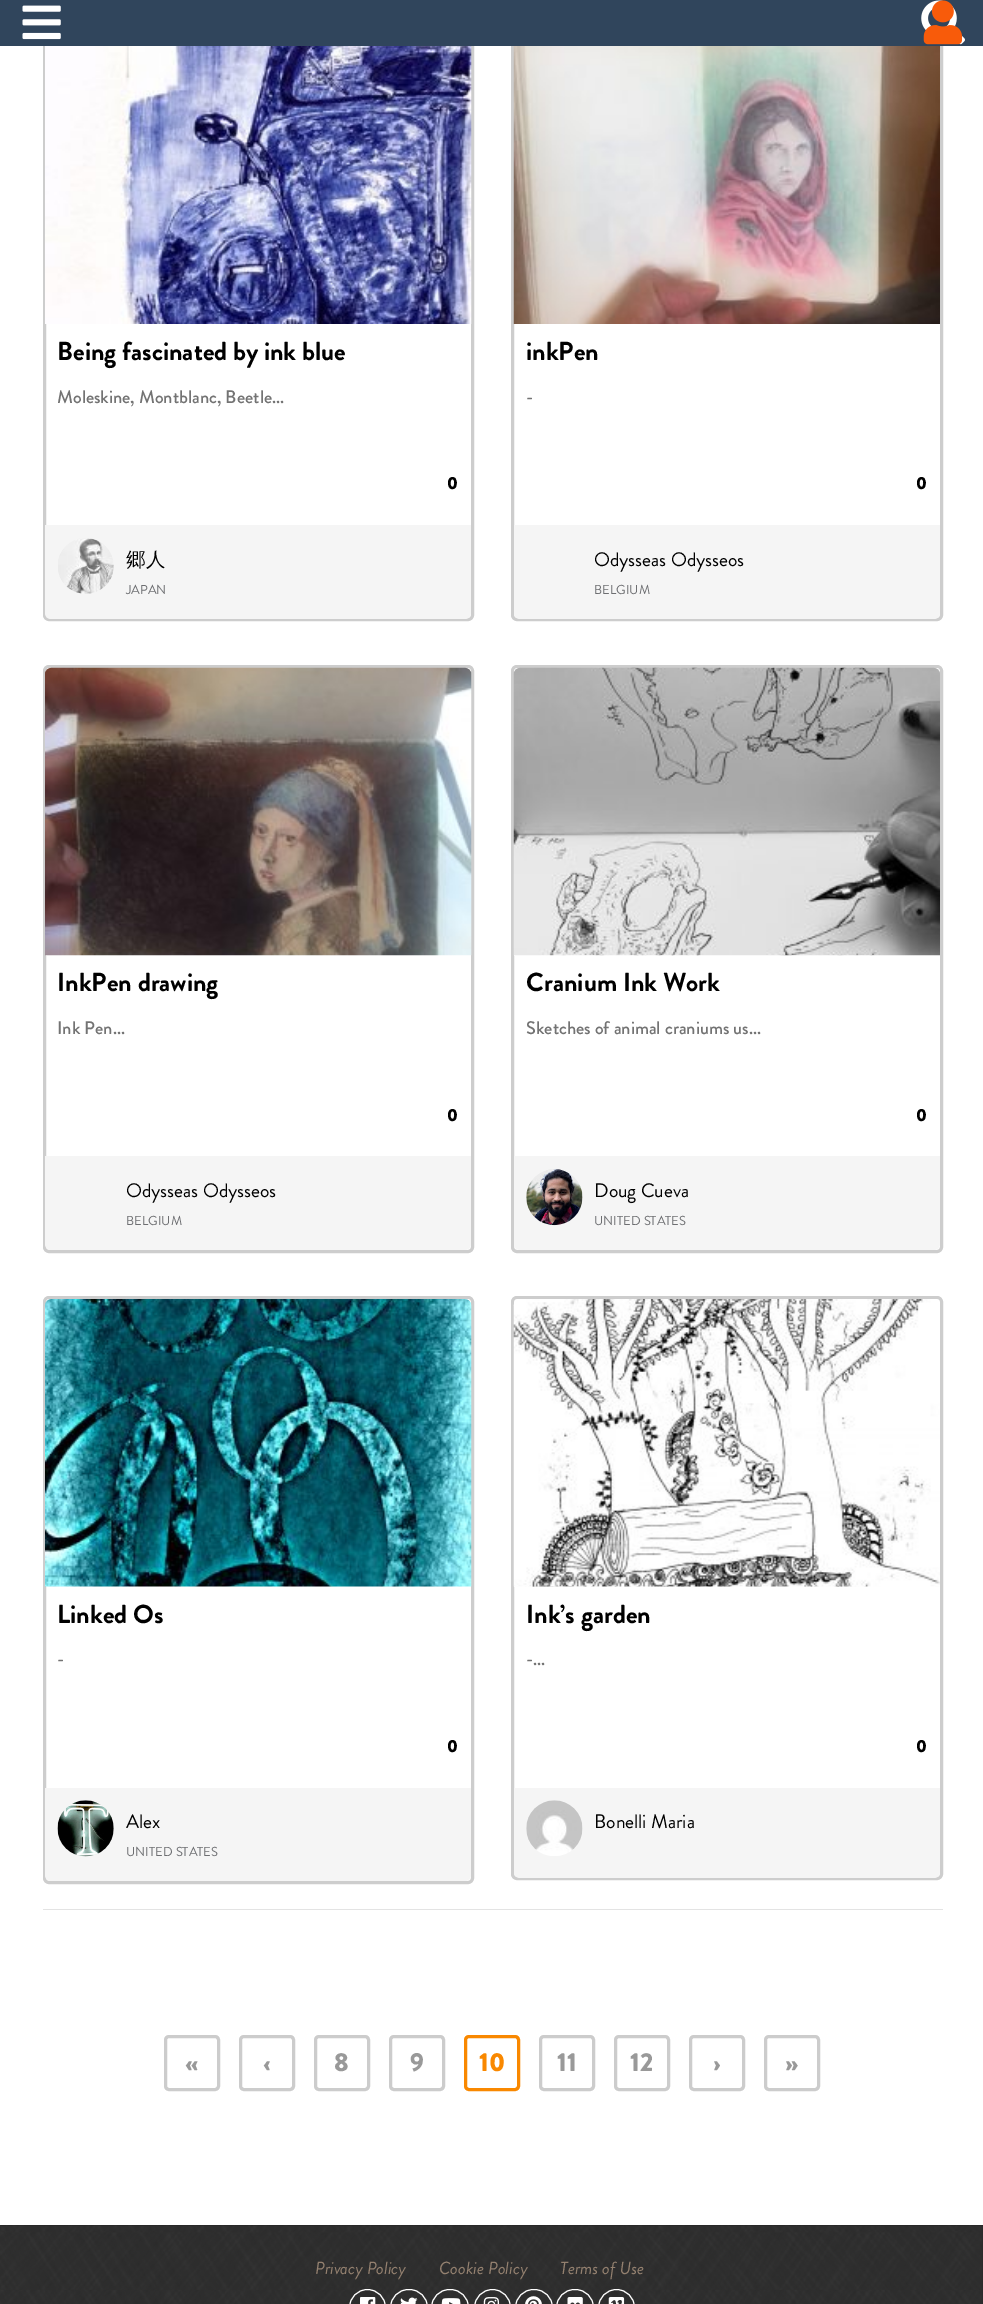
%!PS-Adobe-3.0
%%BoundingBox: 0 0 983 2304
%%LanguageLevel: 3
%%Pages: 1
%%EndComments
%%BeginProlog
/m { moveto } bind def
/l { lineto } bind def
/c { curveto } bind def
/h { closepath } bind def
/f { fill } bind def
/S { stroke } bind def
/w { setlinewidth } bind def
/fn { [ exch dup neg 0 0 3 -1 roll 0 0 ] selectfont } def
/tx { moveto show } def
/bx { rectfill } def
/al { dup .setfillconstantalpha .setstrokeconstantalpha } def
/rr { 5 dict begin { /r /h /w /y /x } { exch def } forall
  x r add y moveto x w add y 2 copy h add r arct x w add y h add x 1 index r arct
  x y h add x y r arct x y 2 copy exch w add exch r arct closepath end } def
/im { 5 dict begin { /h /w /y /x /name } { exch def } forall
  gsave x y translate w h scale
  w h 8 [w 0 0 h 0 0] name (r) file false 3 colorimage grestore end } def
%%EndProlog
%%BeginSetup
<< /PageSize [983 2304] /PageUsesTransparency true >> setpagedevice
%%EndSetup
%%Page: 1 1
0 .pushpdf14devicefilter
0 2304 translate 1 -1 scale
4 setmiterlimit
0.169 setgray
0 0 983 2304 bx
1 setgray
0 46 983 2179 bx
0.804 setgray
3 w
44.5 35.5 428 584 4.5 rr S
512.5 35.5 429 584 4.5 rr S
0.188 0.271 0.361 setrgbcolor
0 0 983 46 bx
(image0.raw) 921 0 44 45 im
(image1.raw) 22 5 39 35 im
(image2.raw) 923 0 40 45 im
(image3.raw) 45 46 427 278 im
/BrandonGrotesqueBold-Bold 26 fn
0 setgray
(Being fascinated by ink blue) 57 360 tx
/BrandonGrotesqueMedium-Medium 18.25 fn
0.451 setgray
(Moleskine, Montblanc, Beetle...) 57 403 tx
/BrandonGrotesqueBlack-Black 17.5 fn
0 setgray
(0) 447 489 tx
0.961 setgray
45 525 m 471 525 l 471 613 l 471 616.5 468.5 619 465 619 c 51 619 l 47.5 619 45 616.5 45 613 c h f
(image4.raw) 58 538 56 56 im
/WenQuanYiZenHei-Medium 19.5 fn
0 setgray
(郷人) 126 566 tx
/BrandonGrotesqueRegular-Regular 13 fn
0.427 0.431 0.443 setrgbcolor
(JAPAN) 126 594 tx
(image5.raw) 513 46 427 278 im
/BrandonGrotesqueBold-Bold 26 fn
0 setgray
(inkPen) 526 360 tx
/BrandonGrotesqueMedium-Medium 18.25 fn
0.451 setgray
(-) 526 403 tx
/BrandonGrotesqueBlack-Black 17.5 fn
0 setgray
(0) 916 489 tx
0.961 setgray
514 525 m 940 525 l 940 613 l 940 616.5 937.5 619 934 619 c 520 619 l 516.5 619 514 616.5 514 613 c h f
/BrandonGrotesqueRegular-Regular 19.5 fn
0 setgray
(Odysseas Odysseos) 594 566 tx
/BrandonGrotesqueRegular-Regular 13 fn
0.427 0.431 0.443 setrgbcolor
(BELGIUM) 594 594 tx
0.804 setgray
44.5 666.5 428 585 4.5 rr S
(image6.raw) 45 667 427 289 im
/BrandonGrotesqueBold-Bold 26 fn
0 setgray
(InkPen drawing) 57 991 tx
/BrandonGrotesqueMedium-Medium 18.25 fn
0.451 setgray
(Ink Pen...) 57 1034 tx
/BrandonGrotesqueBlack-Black 17.5 fn
0 setgray
(0) 447 1121 tx
0.961 setgray
45 1156 m 471 1156 l 471 1244 l 471 1247.5 468.5 1250 465 1250 c 51 1250 l 47.5 1250 45 1247.5 45 1244 c h f
/BrandonGrotesqueRegular-Regular 19.5 fn
0 setgray
(Odysseas Odysseos) 126 1197 tx
/BrandonGrotesqueRegular-Regular 13 fn
0.427 0.431 0.443 setrgbcolor
(BELGIUM) 126 1225 tx
0.804 setgray
512.5 666.5 429 585 4.5 rr S
(image7.raw) 513 667 427 289 im
/BrandonGrotesqueBold-Bold 26 fn
0 setgray
(Cranium Ink Work) 526 991 tx
/BrandonGrotesqueMedium-Medium 18.25 fn
0.451 setgray
(Sketches of animal craniums us...) 526 1034 tx
/BrandonGrotesqueBlack-Black 17.5 fn
0 setgray
(0) 916 1121 tx
0.961 setgray
514 1156 m 940 1156 l 940 1244 l 940 1247.5 937.5 1250 934 1250 c 520 1250 l 516.5 1250 514 1247.5 514 1244 c h f
(image8.raw) 526 1169 57 57 im
/BrandonGrotesqueRegular-Regular 19.5 fn
0 setgray
(Doug Cueva) 594 1197 tx
/BrandonGrotesqueRegular-Regular 13 fn
0.427 0.431 0.443 setrgbcolor
(UNITED STATES) 594 1225 tx
0.804 setgray
44.5 1297.5 428 585 4.5 rr S
(image9.raw) 44 1299 428 288 im
/BrandonGrotesqueBold-Bold 26 fn
0 setgray
(Linked Os) 57 1623 tx
/BrandonGrotesqueMedium-Medium 18.25 fn
0.451 setgray
(-) 57 1665 tx
/BrandonGrotesqueBlack-Black 17.5 fn
0 setgray
(0) 447 1752 tx
0.961 setgray
45 1788 m 471 1788 l 471 1875 l 471 1878.5 468.5 1881 465 1881 c 51 1881 l 47.5 1881 45 1878.5 45 1875 c h f
(image10.raw) 57 1800 57 57 im
/BrandonGrotesqueRegular-Regular 19.5 fn
0 setgray
(Alex) 126 1828 tx
/BrandonGrotesqueRegular-Regular 13 fn
0.427 0.431 0.443 setrgbcolor
(UNITED STATES) 126 1856 tx
0.804 setgray
512.5 1297.5 429 581 4.5 rr S
(image11.raw) 513 1299 427 288 im
/BrandonGrotesqueBold-Bold 26 fn
0 setgray
(Ink’s garden) 526 1623 tx
/BrandonGrotesqueMedium-Medium 18.25 fn
0.451 setgray
(-...) 526 1665 tx
/BrandonGrotesqueBlack-Black 17.5 fn
0 setgray
(0) 916 1752 tx
0.961 setgray
514 1788 m 940 1788 l 940 1872 l 940 1875.5 937.5 1878 934 1878 c 520 1878 l 516.5 1878 514 1875.5 514 1872 c h f
(image12.raw) 526 1800 57 56 im
/BrandonGrotesqueRegular-Regular 19.5 fn
0 setgray
(Bonelli Maria) 594 1828 tx
0.89 setgray
43 1909 900 1 bx
0.8 setgray
165.5 2036.5 53 53 3.5 rr S
/BrandonGrotesqueBlack-Black 26 fn
0.6 setgray
(«) 185 2071 tx
0.8 setgray
240.5 2036.5 53 53 3.5 rr S
0.6 setgray
(‹) 263 2071 tx
0.8 setgray
315.5 2036.5 53 53 3.5 rr S
0.6 setgray
(8) 334 2071 tx
0.8 setgray
390.5 2036.5 53 53 3.5 rr S
0.6 setgray
(9) 410 2071 tx
0.976 0.533 0 setrgbcolor
465.5 2036.5 53 53 3.5 rr S
(10) 479 2071 tx
0.8 setgray
540.5 2036.5 53 53 3.5 rr S
0.6 setgray
(11) 557 2071 tx
0.8 setgray
615.5 2036.5 53 53 3.5 rr S
0.6 setgray
(12) 630 2071 tx
0.8 setgray
690.5 2036.5 53 53 3.5 rr S
0.6 setgray
(›) 713 2071 tx
0.8 setgray
765.5 2036.5 53 53 3.5 rr S
0.6 setgray
(») 785 2071 tx
(image13.raw) 0 2225 982 79 im
0.11 al
0 setgray
0 2225 983 1 bx
/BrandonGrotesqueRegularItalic-Italic 17.5 fn
1 al
0.576 0.502 0.435 setrgbcolor
(Privacy Policy) 315 2274 tx
(Cookie Policy) 439 2274 tx
(Terms of Use) 560 2274 tx
1 setgray
1 w
349.5 2289.5 36 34 18 rr S
(image14.raw) 360 2297 16 7 im
390.5 2289.5 37 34 18 rr S
(image15.raw) 400 2297 18 7 im
431.5 2289.5 37 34 18 rr S
(image16.raw) 441 2298 20 6 im
474.5 2289.5 36 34 18 rr S
(image17.raw) 483 2297 17 7 im
515.5 2289.5 37 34 18 rr S
(image18.raw) 525 2296 17 8 im
556.5 2289.5 37 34 18 rr S
(image19.raw) 567 2297 16 7 im
598.5 2289.5 36 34 18 rr S
(image20.raw) 608 2297 17 7 im
.poppdf14devicefilter showpage
%%EOF
